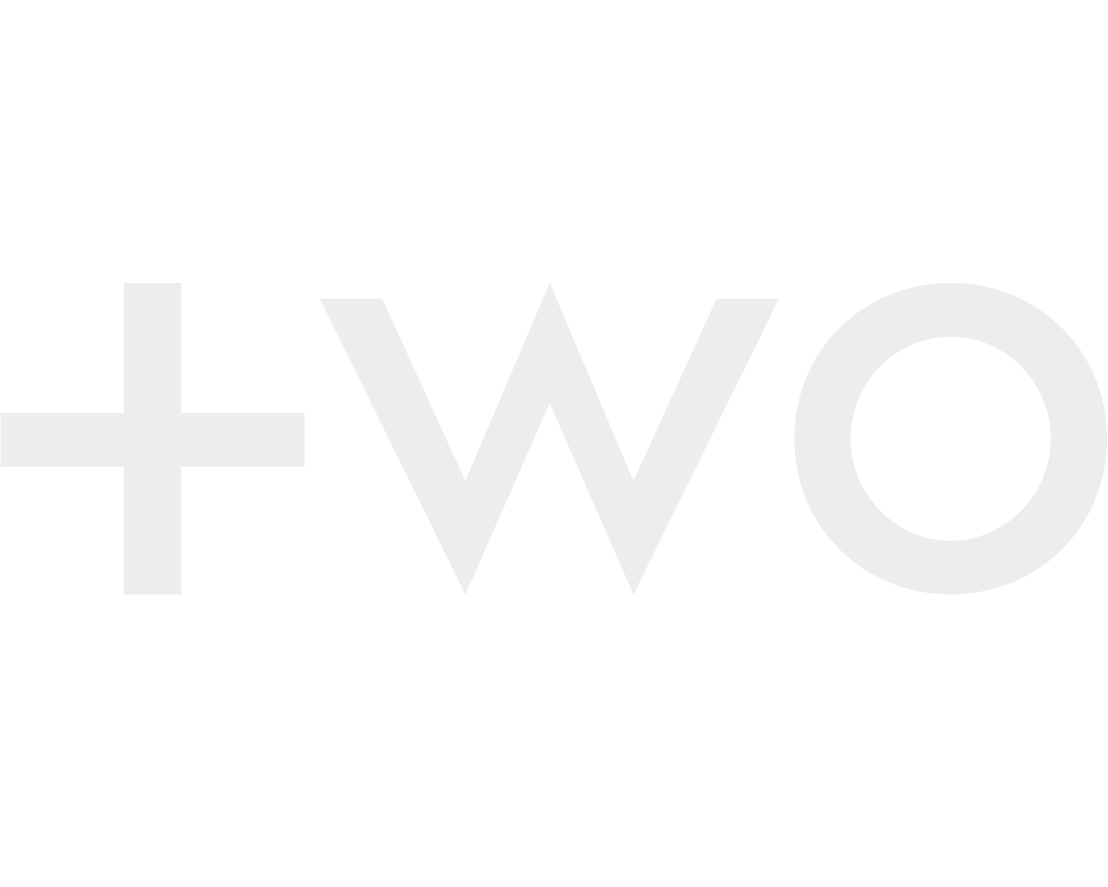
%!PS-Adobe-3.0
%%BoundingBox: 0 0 1108 887
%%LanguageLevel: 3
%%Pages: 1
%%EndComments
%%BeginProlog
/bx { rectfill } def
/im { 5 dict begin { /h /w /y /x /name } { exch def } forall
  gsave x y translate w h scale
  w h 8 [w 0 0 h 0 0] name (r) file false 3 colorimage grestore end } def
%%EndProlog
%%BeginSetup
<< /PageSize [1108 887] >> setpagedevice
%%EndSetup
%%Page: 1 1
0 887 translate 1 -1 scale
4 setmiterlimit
1 setgray
0 0 1108 887 bx
(image0.raw) 0 283 1107 312 im
showpage
%%EOF
